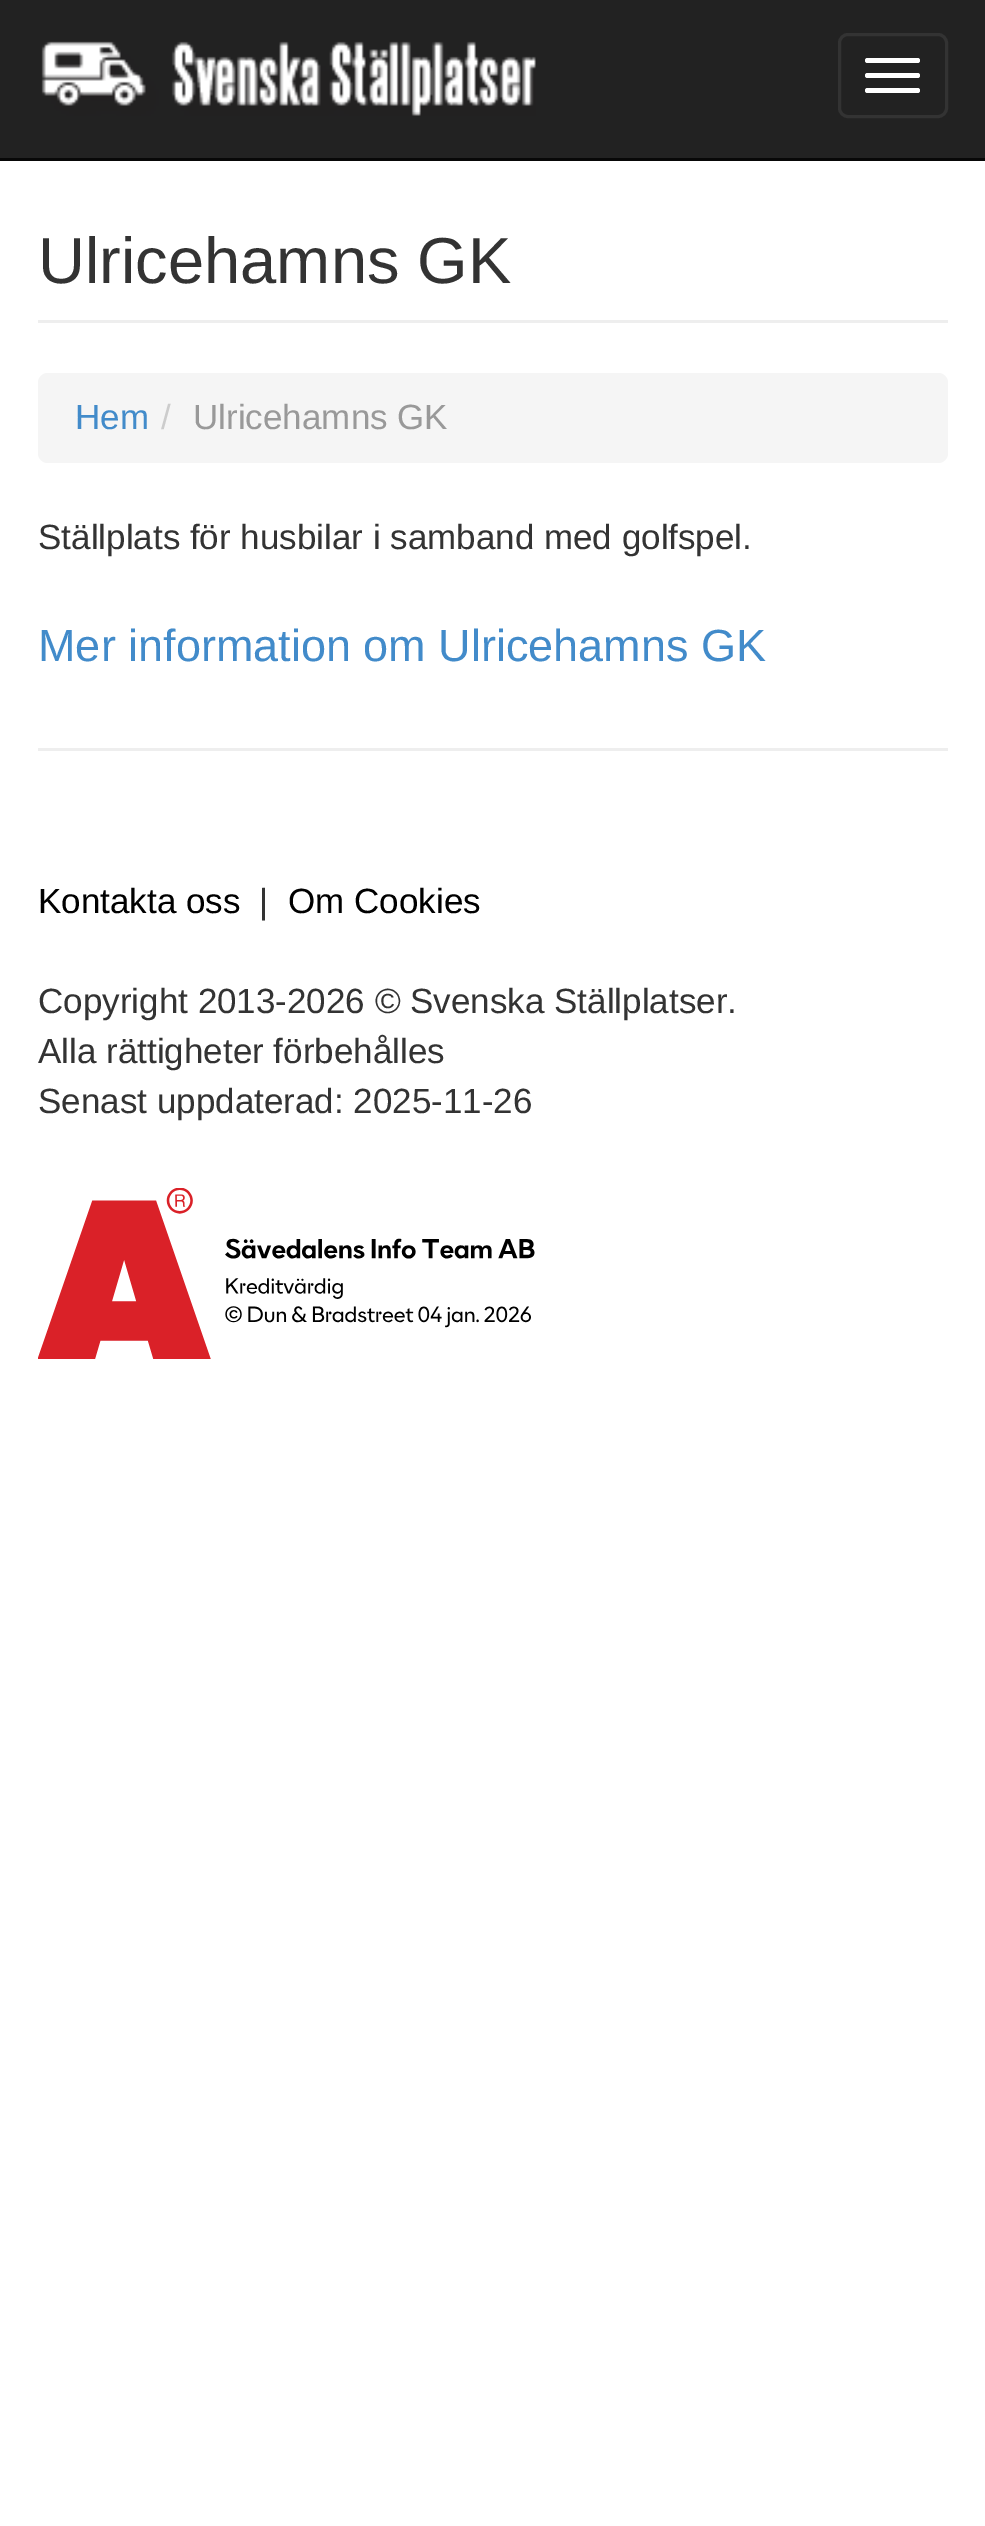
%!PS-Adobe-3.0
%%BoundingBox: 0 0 985 2526
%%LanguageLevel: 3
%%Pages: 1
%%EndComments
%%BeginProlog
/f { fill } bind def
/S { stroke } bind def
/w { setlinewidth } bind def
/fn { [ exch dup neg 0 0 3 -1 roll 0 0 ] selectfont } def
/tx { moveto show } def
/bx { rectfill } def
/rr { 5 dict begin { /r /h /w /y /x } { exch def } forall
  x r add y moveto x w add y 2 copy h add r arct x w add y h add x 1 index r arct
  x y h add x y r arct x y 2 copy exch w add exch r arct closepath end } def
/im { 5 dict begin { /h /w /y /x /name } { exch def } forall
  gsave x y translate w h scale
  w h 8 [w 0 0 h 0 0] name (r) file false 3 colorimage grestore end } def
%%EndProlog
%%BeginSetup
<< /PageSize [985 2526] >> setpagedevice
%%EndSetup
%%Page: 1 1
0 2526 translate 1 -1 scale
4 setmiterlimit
1 setgray
0 0 985 2526 bx
0.133 setgray
0 0 985 158 bx
0.031 setgray
0 158 985 3 bx
(image0.raw) 41 41 495 75 im
0.2 setgray
3 w
839.5 34.5 107 82 8.5 rr S
1 setgray
865 58 55 5 2.5 rr f
865 73 55 5 2.5 rr f
865 88 55 5 2.5 rr f
0.933 setgray
38 320 910 3 bx
/LiberationSans-Regular 65 fn
0.2 setgray
(Ulricehamns GK) 38 283 tx
0.961 setgray
38 373 910 90 10 rr f
/LiberationSans-Regular 35 fn
0.259 0.545 0.792 setrgbcolor
(Hem) 75 429 tx
0.8 setgray
(/) 161 429 tx
0.6 setgray
(Ulricehamns GK) 193 429 tx
0.2 setgray
(Ställplats för husbilar i samband med golfspel.) 38 549 tx
/LiberationSans-Regular 45 fn
0.259 0.545 0.792 setrgbcolor
(Mer information om Ulricehamns GK) 38 661 tx
0.933 setgray
38 748 910 3 bx
/LiberationSans-Regular 35 fn
0 setgray
(Kontakta oss) 38 913 tx
0.2 setgray
(|) 259 913 tx
0 setgray
(Om Cookies) 288 913 tx
0.2 setgray
(Copyright 2013-2026 © Svenska Ställplatser.) 38 1013 tx
(Alla rättigheter förbehålles) 38 1063 tx
(Senast uppdaterad: 2025-11-26) 38 1113 tx
(image1.raw) 38 1188 497 171 im
showpage
%%EOF
